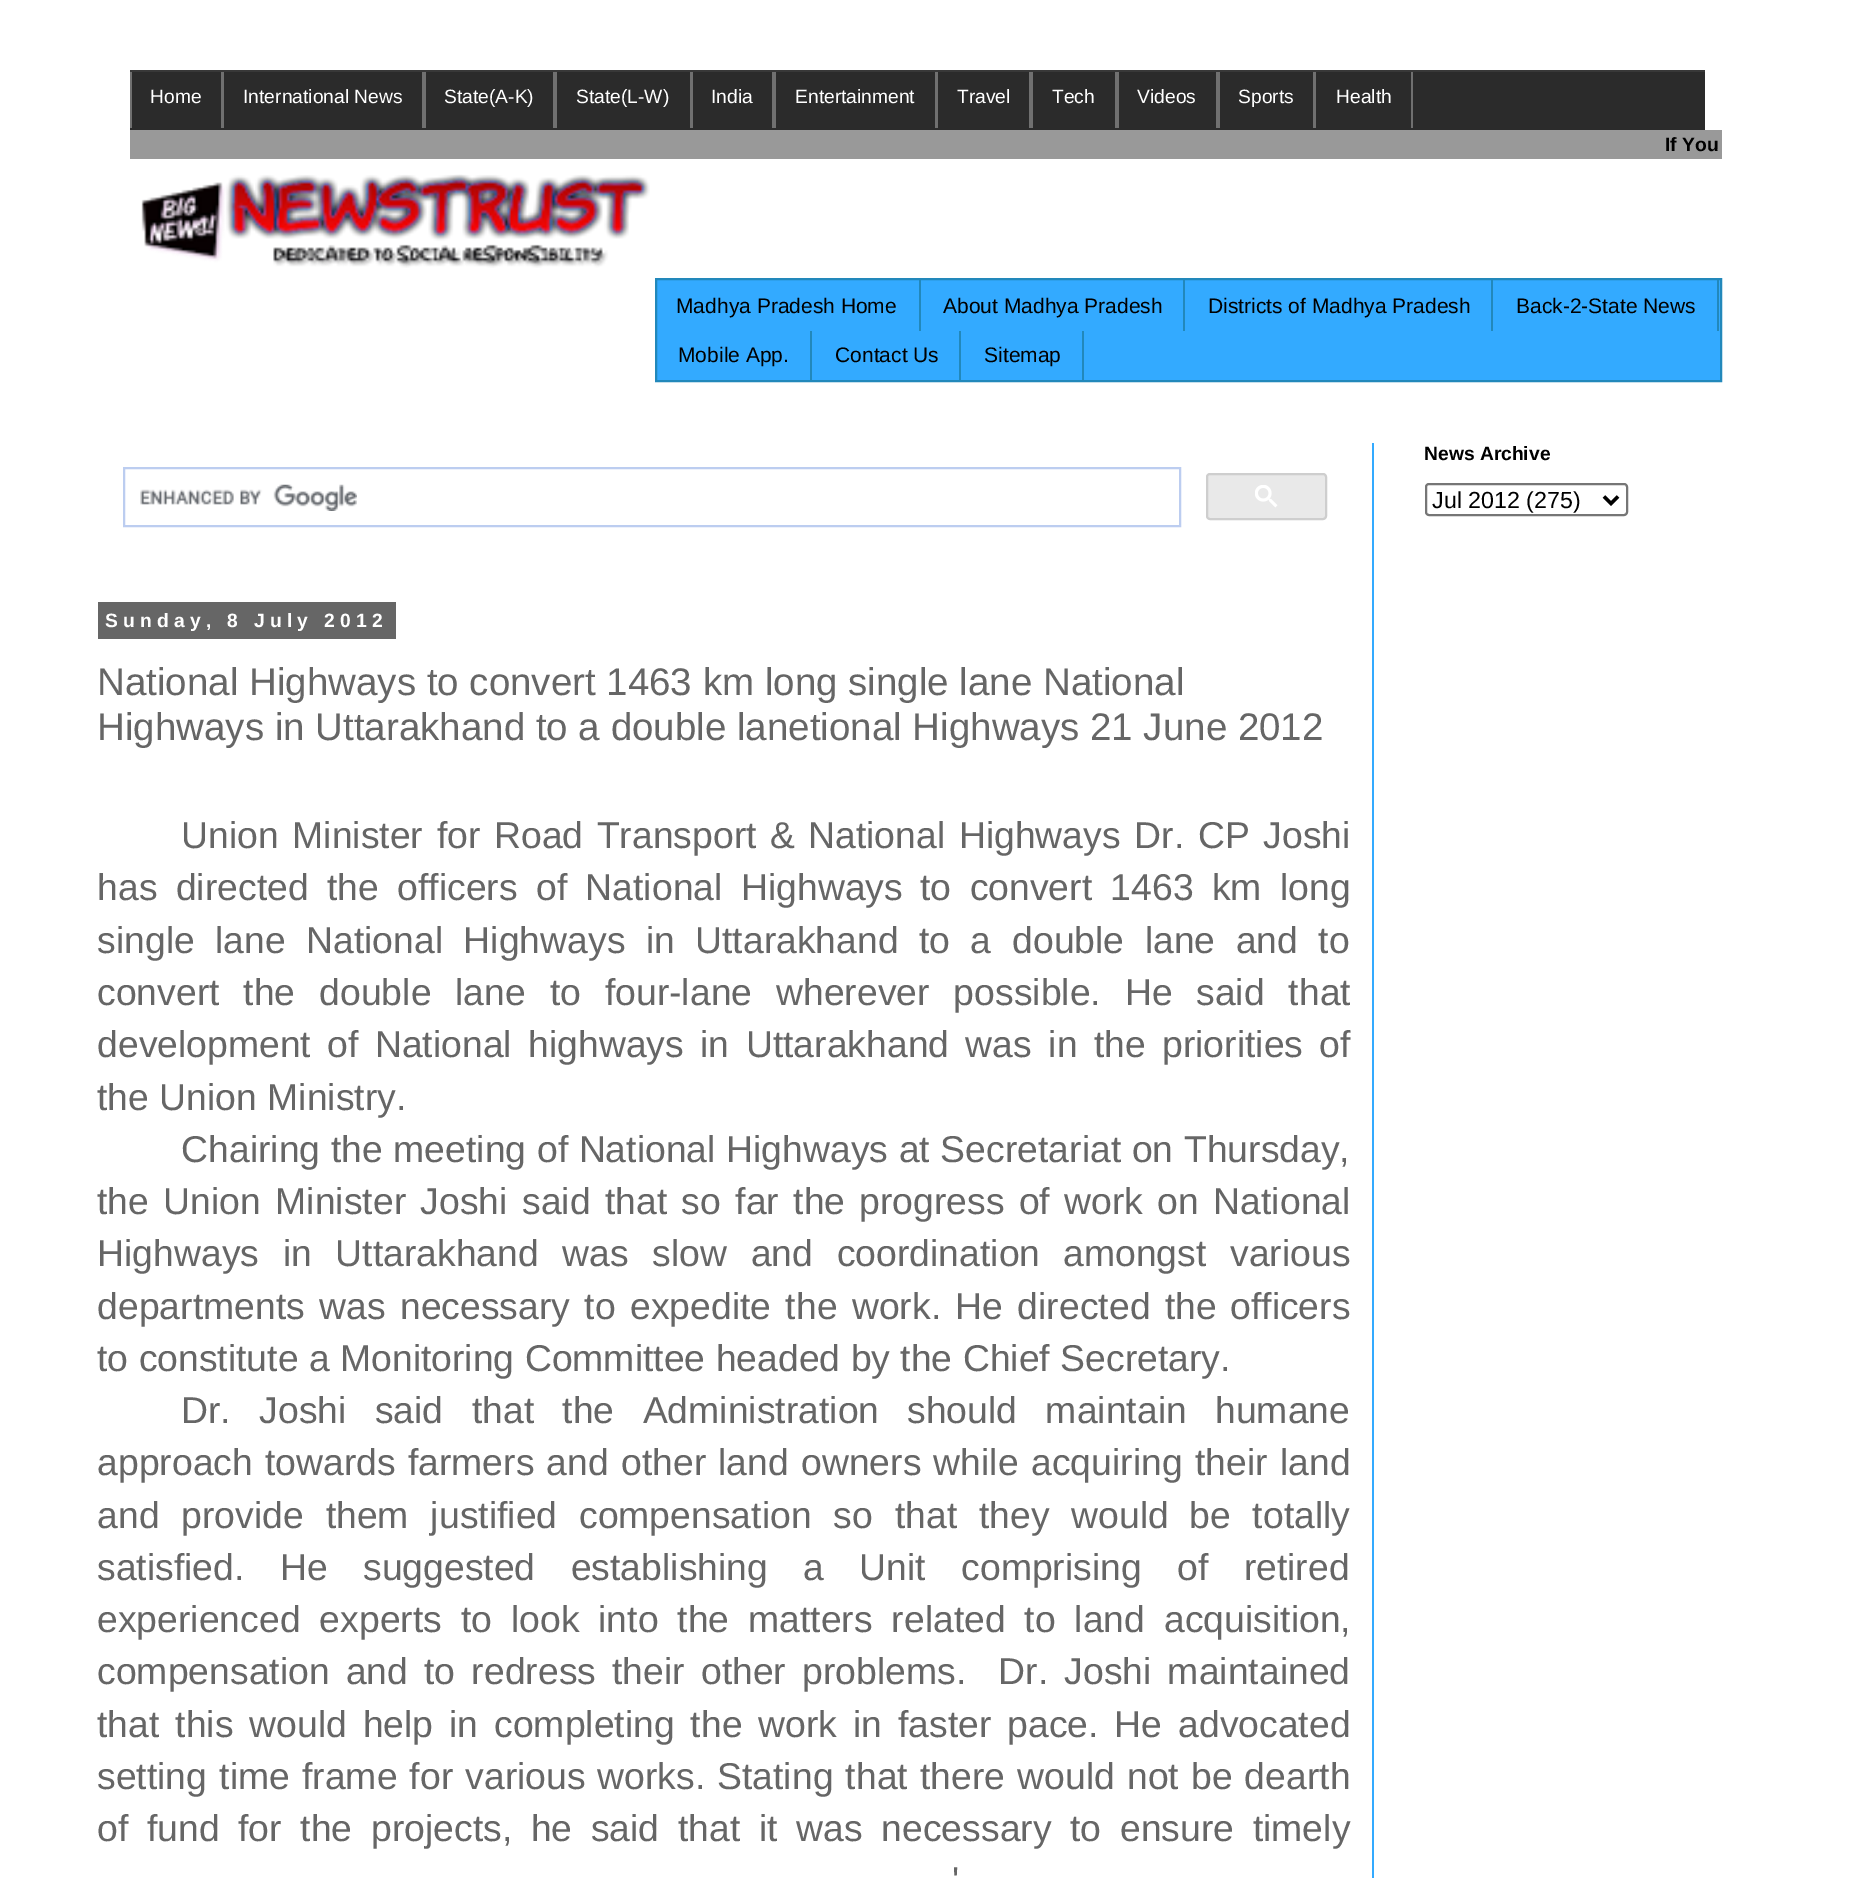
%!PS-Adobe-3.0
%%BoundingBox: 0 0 1849 1878
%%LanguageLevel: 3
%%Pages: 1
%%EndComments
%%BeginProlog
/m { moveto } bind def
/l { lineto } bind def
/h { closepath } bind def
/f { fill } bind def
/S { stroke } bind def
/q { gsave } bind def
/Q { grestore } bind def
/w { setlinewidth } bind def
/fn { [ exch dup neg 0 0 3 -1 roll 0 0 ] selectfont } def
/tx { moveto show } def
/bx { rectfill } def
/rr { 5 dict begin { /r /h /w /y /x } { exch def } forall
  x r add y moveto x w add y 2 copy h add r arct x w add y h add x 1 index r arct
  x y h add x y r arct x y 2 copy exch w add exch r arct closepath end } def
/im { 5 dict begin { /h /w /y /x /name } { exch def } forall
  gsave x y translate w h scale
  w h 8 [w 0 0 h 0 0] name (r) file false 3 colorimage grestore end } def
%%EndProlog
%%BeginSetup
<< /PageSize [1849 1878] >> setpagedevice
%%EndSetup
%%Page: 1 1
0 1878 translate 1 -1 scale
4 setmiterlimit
1 setgray
0 0 1849 1878 bx
0.169 setgray
130 72 1575 58 bx
0.22 setgray
130 70 1575 2 bx
0.439 setgray
221 72 3 56 bx
130 72 2 56 bx
/LiberationSans-Regular 19.25 fn
1 setgray
(Home) 150 103 tx
0.439 setgray
422 72 4 56 bx
1 setgray
(International News) 243 103 tx
0.439 setgray
553 72 4 56 bx
1 setgray
(State\(A-K\)) 444 103 tx
0.439 setgray
690 72 3 56 bx
1 setgray
(State\(L-W\)) 576 103 tx
0.439 setgray
772 72 4 56 bx
1 setgray
(India) 711 103 tx
0.439 setgray
935 72 3 56 bx
1 setgray
(Entertainment) 795 103 tx
0.439 setgray
1029 72 4 56 bx
1 setgray
(Travel) 957 103 tx
0.439 setgray
1115 72 4 56 bx
1 setgray
(Tech) 1052 103 tx
0.439 setgray
1216 72 4 56 bx
1 setgray
(Videos) 1137 103 tx
0.439 setgray
1313 72 3 56 bx
1 setgray
(Sports) 1238 103 tx
0.439 setgray
1411 72 2 56 bx
1 setgray
(Health) 1336 103 tx
0.6 setgray
130 130 1592 29 bx
/LiberationSans-Bold 19.25 fn
0 setgray
(If You) 1665 151 tx
(image0.raw) 141 174 509 94 im
0.2 0.667 1 setrgbcolor
656 279 m 1721 279 l 1721 381 l 656 381 l h q f Q
0.133 0.533 0.733 setrgbcolor
2 w
S
919 280 2 51 bx
/LiberationSans-Regular 21 fn
0 setgray
(Madhya Pradesh Home) 676 313 tx
0.133 0.533 0.733 setrgbcolor
1183 280 2 51 bx
0 setgray
(About Madhya Pradesh) 943 313 tx
0.133 0.533 0.733 setrgbcolor
1491 280 2 51 bx
0 setgray
(Districts of Madhya Pradesh) 1208 313 tx
0.133 0.533 0.733 setrgbcolor
1717 280 2 51 bx
0 setgray
(Back-2-State News) 1516 313 tx
0.133 0.533 0.733 setrgbcolor
810 331 2 49 bx
0 setgray
(Mobile App.) 678 362 tx
0.133 0.533 0.733 setrgbcolor
959 331 2 49 bx
0 setgray
(Contact Us) 835 362 tx
0.133 0.533 0.733 setrgbcolor
1082 331 2 49 bx
0 setgray
(Sitemap) 984 362 tx
0.2 0.667 1 setrgbcolor
1372 443 2 1435 bx
/LiberationSans-Bold 19.25 fn
0 setgray
(News Archive) 1424 460 tx
0.463 setgray
1426 484 201 31 3 rr S
0 setgray
3.5 w
1604 496.5 m 1611 503.5 l 1618 496.5 l S
/LiberationSans-Regular 23.25 fn
(Jul 2012 \(275\)) 1432 508 tx
0.737 0.804 0.941 setrgbcolor
2 w
124 468 1056 58 rectstroke
(image1.raw) 140 484 217 27 im
0.914 setgray
1207 474 119 45 3 rr q f Q
0.808 setgray
S
(image2.raw) 1255 485 23 23 im
0.4 setgray
98 602 298 37 bx
/LiberationSans-Bold 19.25 fn
1 setgray
105 627 m 5.25 0 (Sunday, 8 July 2012) ashow
/LiberationSans-Regular 38.5 fn
0.4 setgray
(National Highways to convert 1463 km long single lane National) 97 695 tx
(Highways in Uttarakhand to a double lanetional Highways 21 June 2012) 97 740 tx
/LiberationSans-Regular 37.35 fn
181 848 m 3.25 0 32 (Union Minister for Road Transport &) widthshow
808 848 m 3.25 0 32 (National Highways Dr. CP Joshi) widthshow
97 900 m 8 0 32 (has directed the officers of National Highways) widthshow
920 900 m 8 0 32 (to convert 1463 km long) widthshow
97 953 m 10 0 32 (single lane National Highways in Uttarakhand to a) widthshow
1012 953 m 10 0 32 (double lane and to) widthshow
97 1005 m 13.5 0 32 (convert the double lane to four-lane wherever possible. He) widthshow
1196 1005 m 13.5 0 32 (said that) widthshow
97 1057 m 6 0 32 (development of National highways in Uttarakhand was in the priorities) widthshow
(of) 1319 1057 tx
(the Union Ministry.) 97 1110 tx
181 1162 m 0.25 0 32 (Chairing the meeting of National Highways at Secretariat on Thursday,) widthshow
97 1214 m 4 0 32 (the Union Minister Joshi said that so far the) widthshow
859 1214 m 4 0 32 (progress of work on National) widthshow
97 1266 m 13.25 0 32 (Highways in Uttarakhand was slow and coordination) widthshow
1063 1266 m 13.25 0 32 (amongst various) widthshow
97 1319 m 4 0 32 (departments was necessary to expedite the work. He directed the) widthshow
(officers) 1230 1319 tx
(to constitute a Monitoring Committee headed by the Chief Secretary.) 97 1371 tx
181 1423 m 18 0 32 (Dr. Joshi said that the Administration) widthshow
907 1423 m 18 0 32 (should maintain humane) widthshow
97 1475 m 1.75 0 32 (approach towards farmers and other land owners while) widthshow
1031 1475 m 2 0 32 (acquiring their land) widthshow
97 1528 m 11.5 0 32 (and provide them justified compensation so that they would) widthshow
1189 1528 m 11.5 0 32 (be totally) widthshow
97 1580 m 25 0 32 (satisfied. He suggested establishing a Unit comprising of retired) widthshow
97 1632 m 8.5 0 32 (experienced experts to look into the matters related to land acquisition,) widthshow
97 1684 m 5.75 0 32 (compensation and to redress their other problems.  Dr. Joshi maintained) widthshow
97 1737 m 5.5 0 32 (that this would help in) widthshow
494 1737 m 5.5 0 32 (completing the work in faster pace. He advocated) widthshow
97 1789 m 1.75 0 32 (setting time frame for various) widthshow
597 1789 m 1.75 0 32 (works. Stating that there would not be dearth) widthshow
97 1841 m 8.25 0 32 (of fund for the projects, he said) widthshow
678 1841 m 8.25 0 32 (that it was necessary to ensure timely) widthshow
952 1893 m 2 0 32 (') widthshow
showpage
%%EOF
